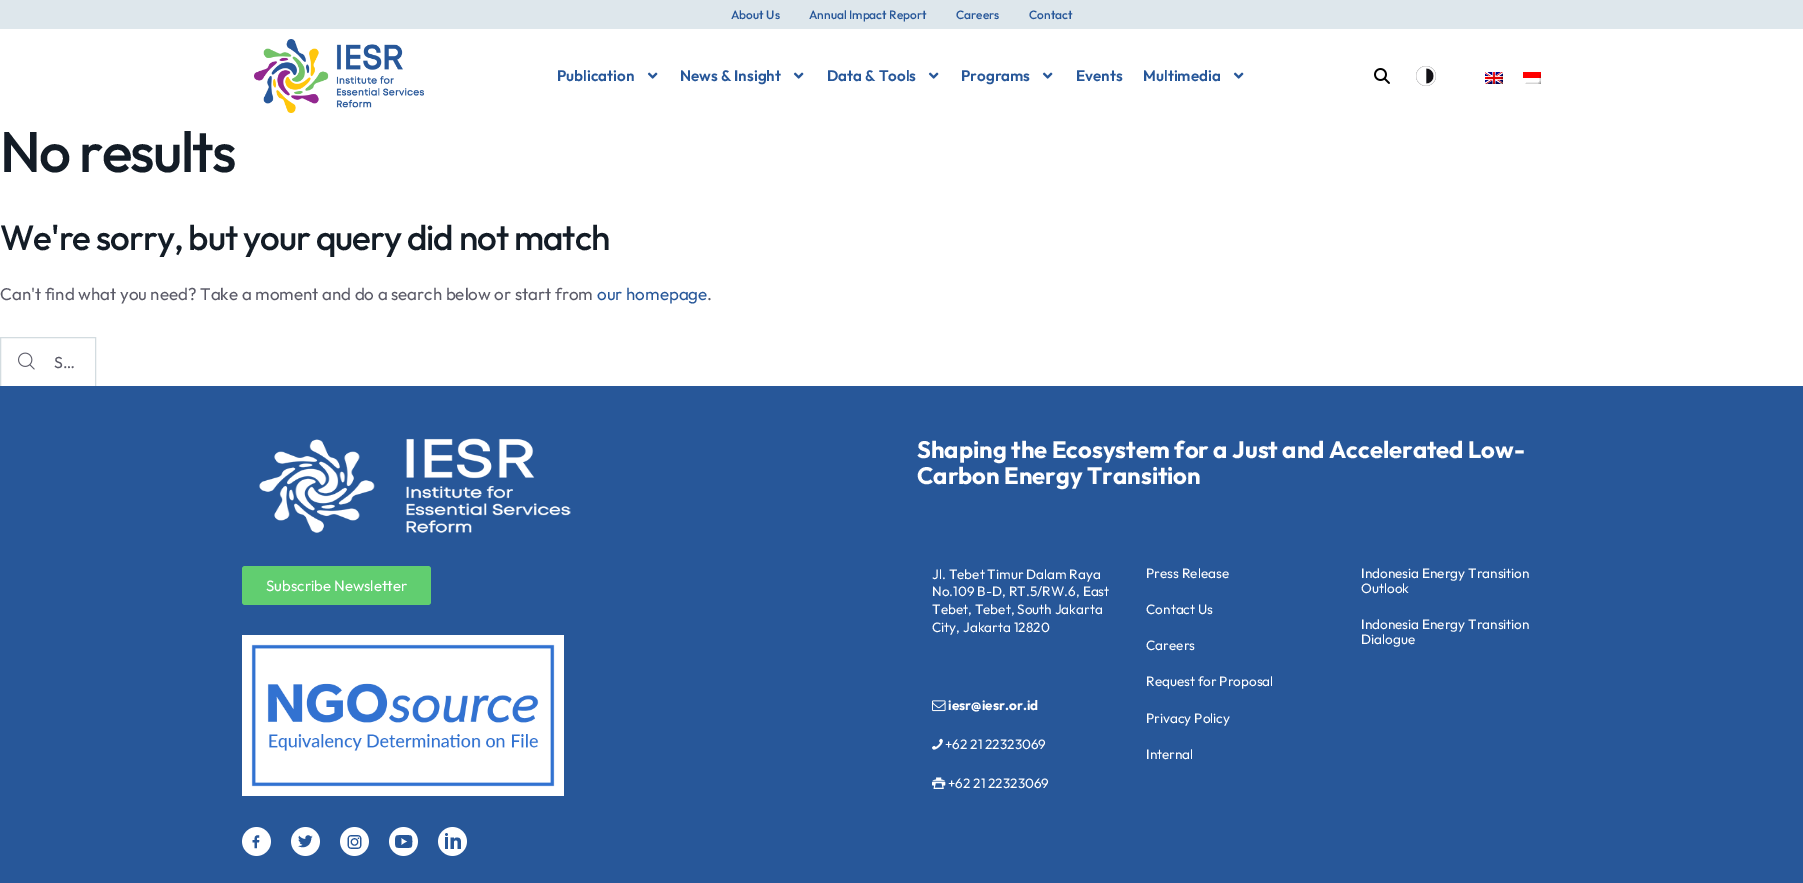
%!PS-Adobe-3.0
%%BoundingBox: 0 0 1803 883
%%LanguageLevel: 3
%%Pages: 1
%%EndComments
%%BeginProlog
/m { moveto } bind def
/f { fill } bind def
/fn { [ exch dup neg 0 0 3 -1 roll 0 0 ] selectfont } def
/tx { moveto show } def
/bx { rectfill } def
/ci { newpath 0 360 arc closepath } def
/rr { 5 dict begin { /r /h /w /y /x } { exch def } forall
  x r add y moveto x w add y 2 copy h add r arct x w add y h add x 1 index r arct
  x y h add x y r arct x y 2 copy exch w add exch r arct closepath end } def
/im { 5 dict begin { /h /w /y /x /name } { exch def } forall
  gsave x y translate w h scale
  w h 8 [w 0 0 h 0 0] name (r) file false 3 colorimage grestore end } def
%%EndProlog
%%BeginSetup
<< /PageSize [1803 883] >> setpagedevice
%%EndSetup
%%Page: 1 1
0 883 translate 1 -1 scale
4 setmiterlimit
1 setgray
0 0 1803 883 bx
0.871 0.906 0.925 setrgbcolor
0 0 1803 29 bx
/Outfit-Medium 12 fn
0.153 0.341 0.6 setrgbcolor
(About Us) 731 19 tx
(Annual Impact Report) 809 19 tx
(Careers) 956 19 tx
(Contact) 1029 19 tx
(image0.raw) 254 39 170 74 im
/Outfit-SemiBold 15.25 fn
(Publication) 557 81 tx
(image1.raw) 647 72 11 7 im
(News & Insight) 680 81 tx
(image1.raw) 793 72 11 7 im
(Data & Tools) 827 81 tx
(image1.raw) 928 72 11 7 im
(Programs) 961 81 tx
(image1.raw) 1042 72 11 7 im
(Events) 1076 81 tx
(Multimedia) 1143 81 tx
(image1.raw) 1233 72 11 7 im
(image2.raw) 1374 68 16 16 im
0.071 0.067 0.086 setrgbcolor
1426 76 10 ci f
(image3.raw) 1416 66 20 20 im
(image4.raw) 1485 72 18 12 im
(image5.raw) 1523 72 18 12 im
/Outfit-Medium 57 fn
0.075 0.11 0.149 setrgbcolor
0 172 m -1.75 0 (No results) ashow
/Outfit-Medium 35 fn
0 250 m -1 0 (We're sorry, but your query did not match) ashow
/Outfit-Regular 17 fn
0.353 0.353 0.404 setrgbcolor
(Can't find what you need? Take a moment and do a search below or start from) 0 300 tx
0.153 0.341 0.6 setrgbcolor
(our homepage) 597 300 tx
0.353 0.353 0.404 setrgbcolor
(.) 707 300 tx
0.827 0.863 0.878 setrgbcolor
0.5 337.5 95 50 rectstroke
(image6.raw) 18 352 17 18 im
/Outfit-Regular 16 fn
0.353 0.353 0.404 setrgbcolor
(S…) 54 368 tx
0.153 0.341 0.6 setrgbcolor
0 386 1803 497 bx
(image7.raw) 259 438 312 95 im
/Outfit-Bold 23.8 fn
1 setgray
(Shaping the Ecosystem for a Just and Accelerated Low-) 917 458 tx
(Carbon Energy Transition) 917 484 tx
0.38 0.808 0.439 setrgbcolor
242 566 189 39 3 rr f
/Outfit-Regular 15 fn
1 setgray
(Subscribe Newsletter) 266 591 tx
(image8.raw) 242 635 322 161 im
(image9.raw) 242 827 29 29 im
(image10.raw) 291 827 29 29 im
(image11.raw) 340 827 29 29 im
(image12.raw) 389 827 29 29 im
(image13.raw) 438 827 29 29 im
/Outfit-Regular 13.6 fn
(Jl. Tebet Timur Dalam Raya) 932 579 tx
(No.109 B-D, RT.5/RW.6, East) 932 596 tx
(Tebet, Tebet, South Jakarta) 932 614 tx
(City, Jakarta 12820) 932 632 tx
(image14.raw) 932 700 14 12 im
/Outfit-Bold 13.6 fn
(iesr@iesr.or.id) 948 710 tx
(image15.raw) 932 738 11 12 im
/Outfit-Regular 13.6 fn
(+62 21 22323069) 945 749 tx
(image16.raw) 932 777 14 12 im
(+62 21 22323069) 948 788 tx
(Press Release) 1146 578 tx
(Contact Us) 1146 614 tx
(Careers) 1146 650 tx
(Request for Proposal) 1146 686 tx
(Privacy Policy) 1146 723 tx
(Internal) 1146 759 tx
(Indonesia Energy Transition) 1361 578 tx
(Outlook) 1361 593 tx
(Indonesia Energy Transition) 1361 629 tx
(Dialogue) 1361 644 tx
showpage
%%EOF
